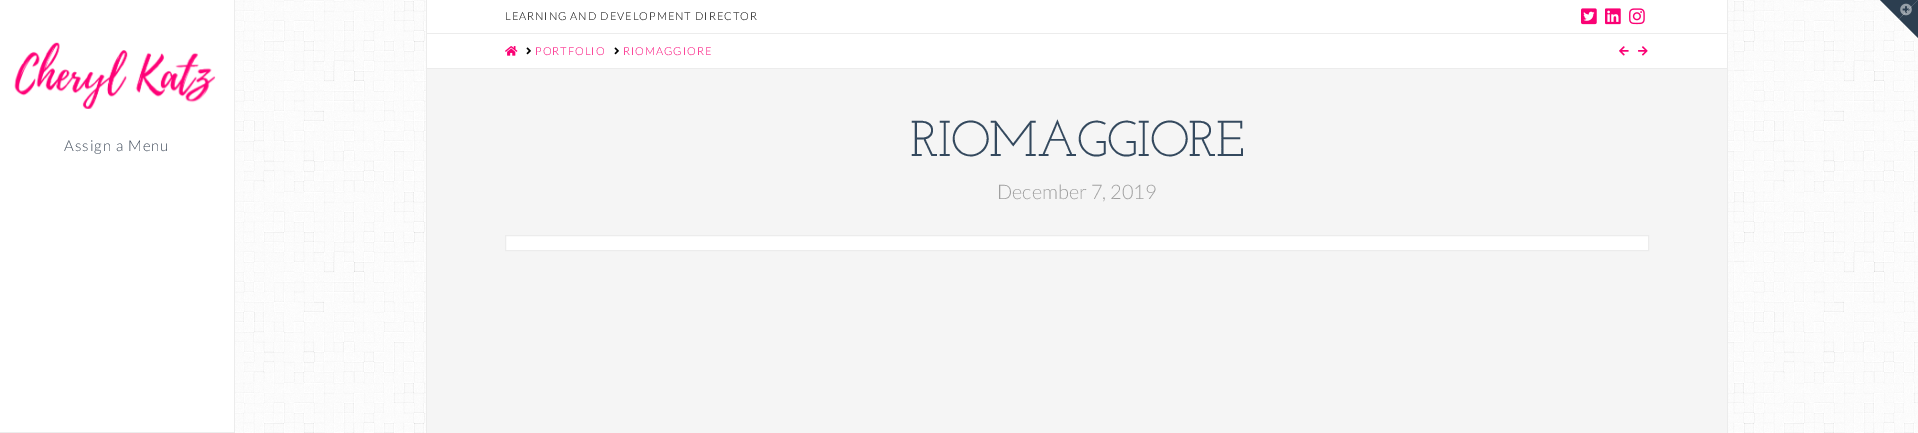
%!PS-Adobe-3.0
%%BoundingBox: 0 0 1918 433
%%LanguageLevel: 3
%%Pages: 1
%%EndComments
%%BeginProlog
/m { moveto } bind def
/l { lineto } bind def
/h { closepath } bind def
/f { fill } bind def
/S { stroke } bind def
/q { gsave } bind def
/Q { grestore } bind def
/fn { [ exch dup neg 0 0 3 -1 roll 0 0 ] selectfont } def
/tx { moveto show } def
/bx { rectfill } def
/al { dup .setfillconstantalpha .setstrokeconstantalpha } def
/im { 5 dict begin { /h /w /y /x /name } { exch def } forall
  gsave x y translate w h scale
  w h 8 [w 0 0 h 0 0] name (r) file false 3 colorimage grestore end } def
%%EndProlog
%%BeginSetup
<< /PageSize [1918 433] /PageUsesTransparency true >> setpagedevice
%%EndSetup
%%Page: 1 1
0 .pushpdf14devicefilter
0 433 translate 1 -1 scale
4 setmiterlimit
1 setgray
0 0 1918 433 bx
(image0.raw) 235 0 1683 433 im
427 0 1300 68 bx
0.925 setgray
1727 0 1 433 bx
426 0 1 433 bx
427 33 1300 1 bx
/Lato-Light 11 fn
0 setgray
505 20 m 1 0 (LEARNING AND DEVELOPMENT DIRECTOR) ashow
(image1.raw) 1581 8 16 17 im
(image2.raw) 1605 8 16 17 im
(image3.raw) 1629 8 16 17 im
0.925 setgray
427 68 1300 1 bx
(image4.raw) 505 46 13 10 im
(image5.raw) 526 47 5 8 im
0.98 0.004 0.455 setrgbcolor
535 55 m 1 0 (PORTFOLIO) ashow
(image5.raw) 614 47 5 8 im
623 55 m 1 0 (RIOMAGGIORE) ashow
(image6.raw) 1619 46 10 10 im
(image7.raw) 1638 46 10 10 im
0.925 setgray
235 0 m 235 433 l 234 432 l 234 0 l h f
0.07 al
0 setgray
235 433 m 0 433 l 0 432 l 234 432 l h f
1 al
(image8.raw) 14 42 202 67 im
/Lato-Light 15 fn
0.255 0.298 0.357 setrgbcolor
64 151 m 1 0 (Assign a Menu) ashow
0.961 setgray
427 69 1300 364 bx
/JosefinSlab-Regular 50.25 fn
0.204 0.286 0.369 setrgbcolor
910 156 m -0.8 0 (RIOMAGGIORE) ashow
/Lato-Light 20 fn
0.624 setgray
(December 7, 2019) 997 199 tx
1 setgray
505.5 235.5 m 1648.5 235.5 l 1648.5 250.5 l 505.5 250.5 l h q f Q
0.925 setgray
S
0.173 0.243 0.314 setrgbcolor
1880 0 m 1918 0 l 1899 19 l h f
1918 0 m 1918 38 l 1899 19 l h f
(image9.raw) 1900 3 12 13 im
.poppdf14devicefilter showpage
%%EOF
